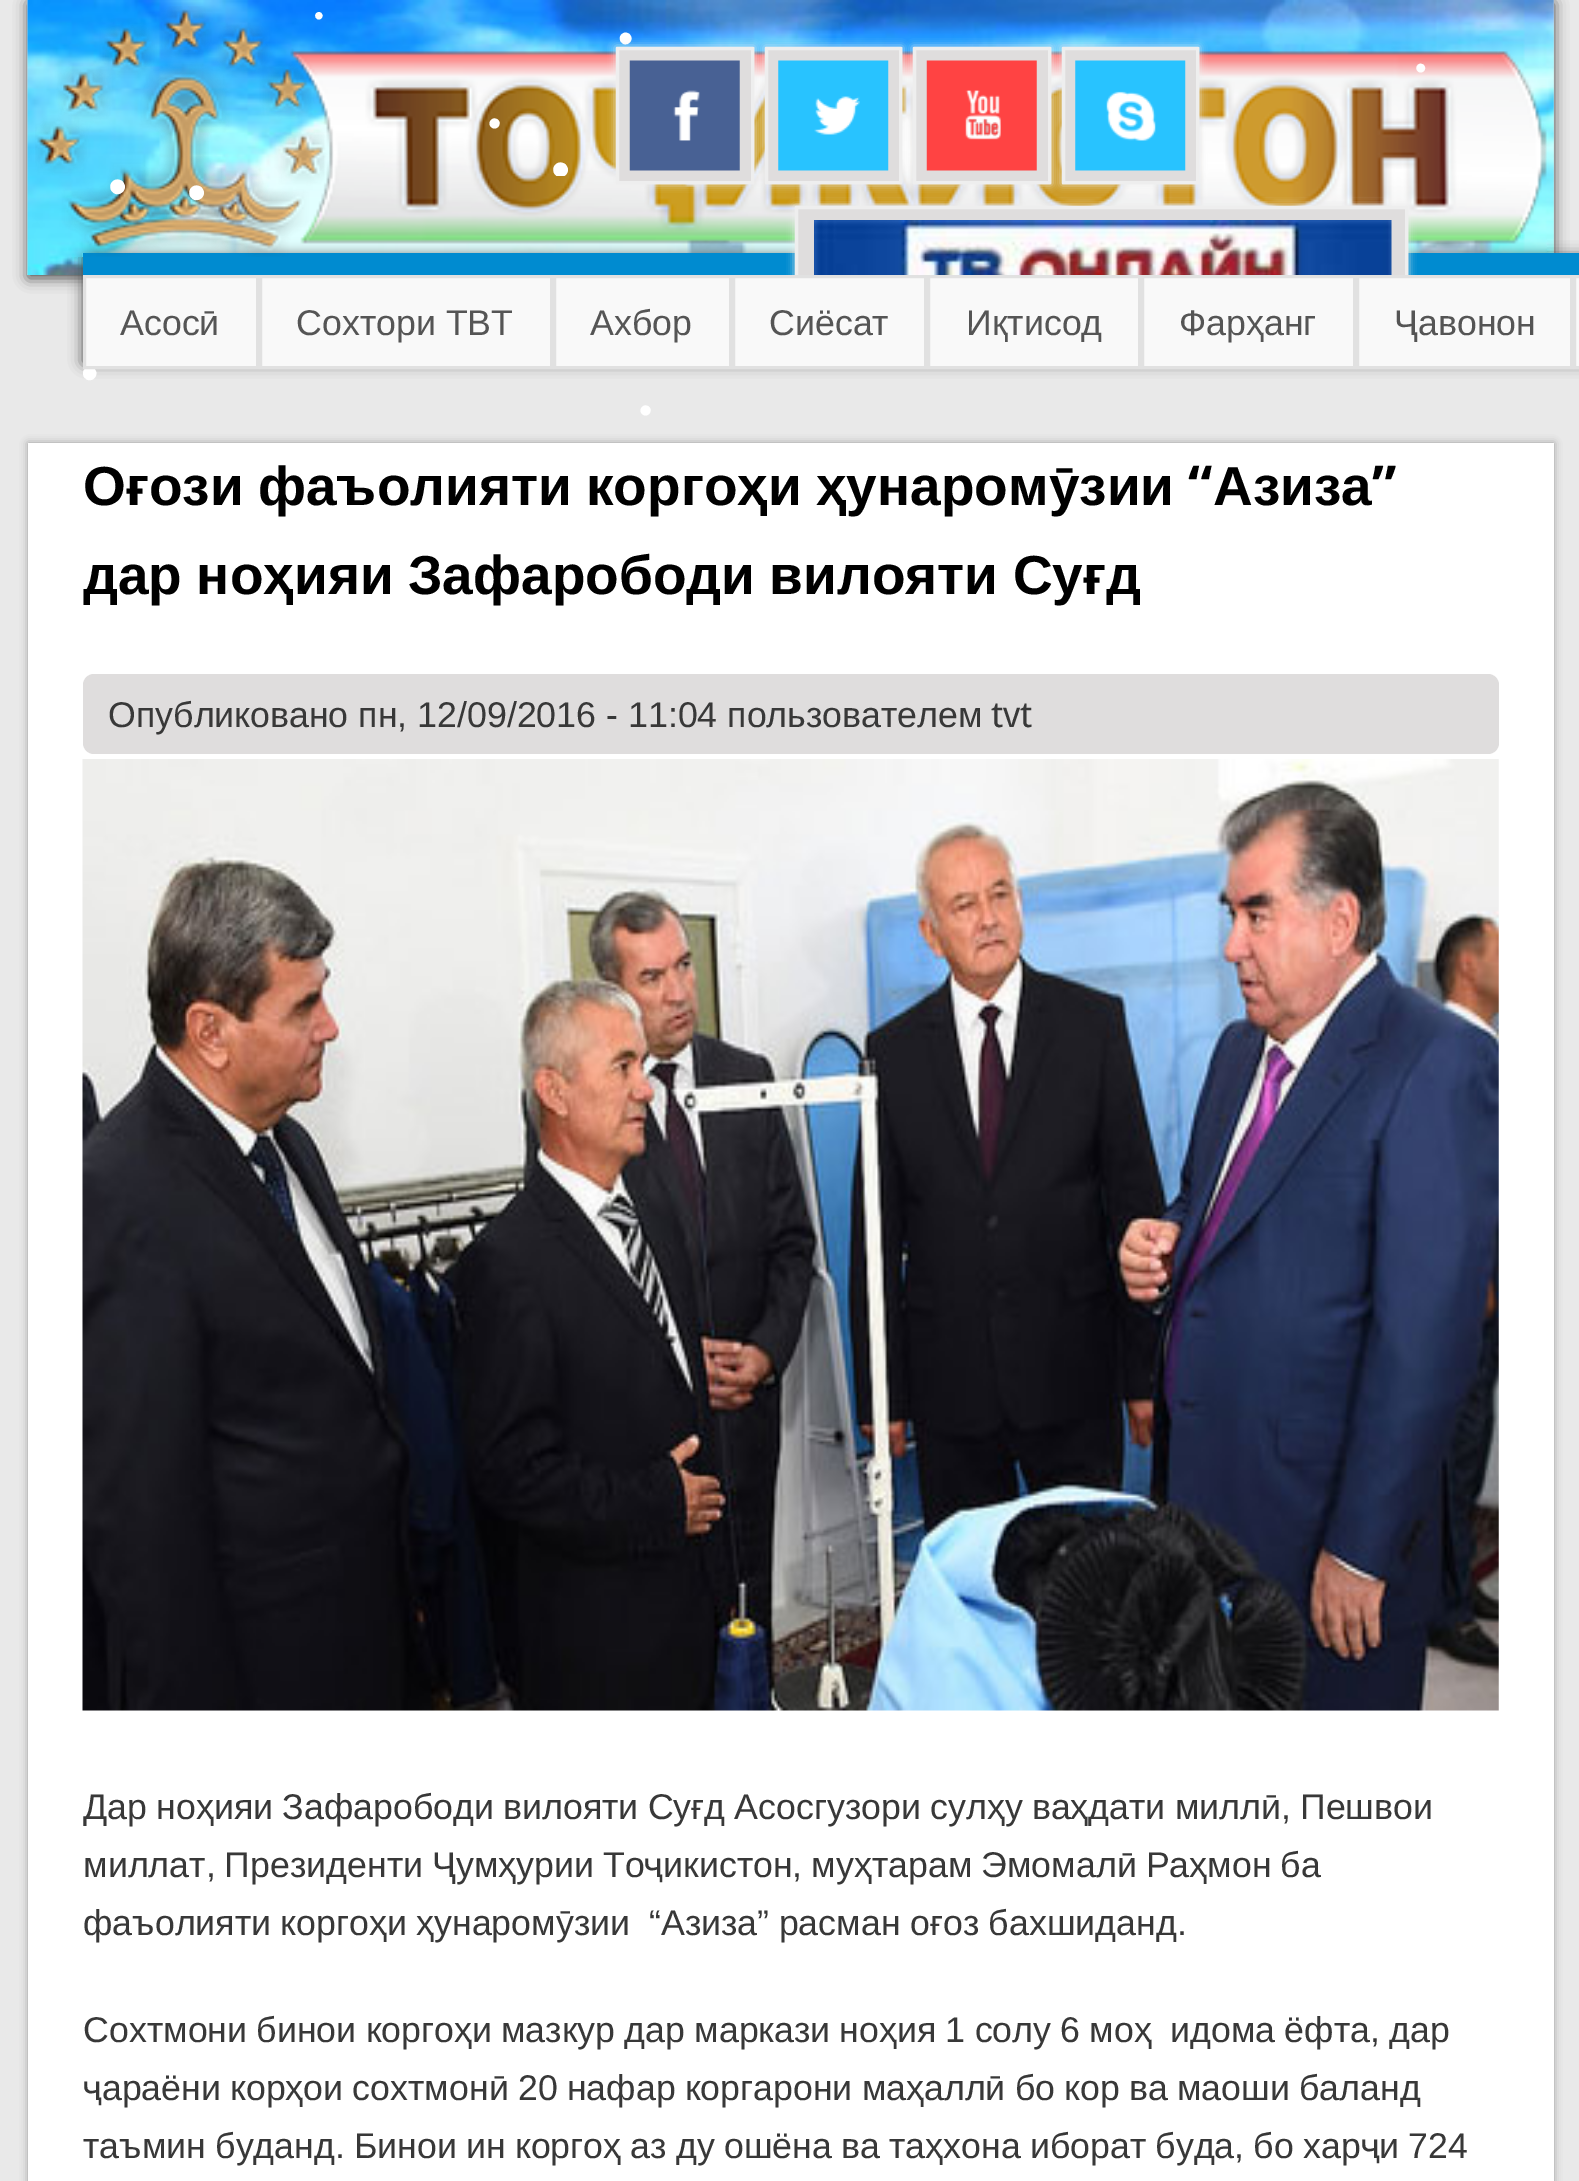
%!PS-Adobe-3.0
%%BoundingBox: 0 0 1579 2181
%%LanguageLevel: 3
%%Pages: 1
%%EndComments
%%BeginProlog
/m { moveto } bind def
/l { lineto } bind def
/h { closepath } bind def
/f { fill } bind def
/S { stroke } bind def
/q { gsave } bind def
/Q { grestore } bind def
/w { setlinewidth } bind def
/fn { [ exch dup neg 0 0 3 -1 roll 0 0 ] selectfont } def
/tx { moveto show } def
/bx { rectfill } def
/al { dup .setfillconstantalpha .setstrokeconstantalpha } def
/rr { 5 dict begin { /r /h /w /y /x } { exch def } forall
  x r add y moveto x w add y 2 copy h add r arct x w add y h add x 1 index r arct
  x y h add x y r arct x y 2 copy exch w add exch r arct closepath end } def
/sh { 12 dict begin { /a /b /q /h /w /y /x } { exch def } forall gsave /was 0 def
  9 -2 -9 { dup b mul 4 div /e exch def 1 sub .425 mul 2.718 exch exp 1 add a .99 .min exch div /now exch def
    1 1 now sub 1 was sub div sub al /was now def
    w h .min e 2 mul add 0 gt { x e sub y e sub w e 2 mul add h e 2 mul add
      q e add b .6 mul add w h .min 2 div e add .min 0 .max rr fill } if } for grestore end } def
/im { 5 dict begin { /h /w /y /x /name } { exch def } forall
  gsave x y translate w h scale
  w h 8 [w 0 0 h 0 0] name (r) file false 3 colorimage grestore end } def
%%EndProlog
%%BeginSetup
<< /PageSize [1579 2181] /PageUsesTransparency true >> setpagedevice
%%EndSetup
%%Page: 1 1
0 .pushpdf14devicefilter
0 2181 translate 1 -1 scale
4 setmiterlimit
0.914 setgray
0 0 1579 2181 bx
0.29 setgray
28 3 1526 275 0 7 1 sh
(image0.raw) 27 0 1527 275 im
83 256 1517 107 0 7 1 sh
0 0.545 0.816 setrgbcolor
83 253 1496 22 bx
(image1.raw) 35 6 1512 251 im
/LiberationSans-Regular 28 fn
1 setgray
(•) 314 25 tx
/LiberationSans-Regular 44 fn
(•) 618 53 tx
/LiberationSans-Regular 33 fn
(•) 1415 79 tx
/LiberationSans-Regular 38 fn
(•) 488 136 tx
q
550 154 22 22 rectclip
/LiberationSans-Regular 55 fn
(•) 551 188 tx
Q
/LiberationSans-Regular 55 fn
(•) 108 205 tx
(•) 187 211 tx
0.933 setgray
616 47 138 137 0 4 1 sh
0.875 0.867 0.867 setrgbcolor
617.5 48.5 m 752.5 48.5 l 752.5 182.5 l 617.5 182.5 l h q f Q
0.933 setgray
3 w
S
765 47 137 137 0 4 1 sh
0.875 0.867 0.867 setrgbcolor
766.5 48.5 m 900.5 48.5 l 900.5 182.5 l 766.5 182.5 l h q f Q
0.933 setgray
S
913 47 138 137 0 4 1 sh
0.875 0.867 0.867 setrgbcolor
914.5 48.5 m 1049.5 48.5 l 1049.5 182.5 l 914.5 182.5 l h q f Q
0.933 setgray
S
1062 47 137 137 0 4 1 sh
0.875 0.867 0.867 setrgbcolor
1063.5 48.5 m 1197.5 48.5 l 1197.5 182.5 l 1063.5 182.5 l h q f Q
0.933 setgray
S
(image2.raw) 629 60 111 111 im
(image3.raw) 778 60 111 111 im
(image4.raw) 926 60 111 111 im
(image5.raw) 1075 60 111 111 im
795 206 613 135 0 4 1 sh
0.875 0.867 0.867 setrgbcolor
798 209 607 66 bx
0.933 setgray
796.5 207.5 610 132 rectstroke
(image6.raw) 814 220 578 55 im
/LiberationSans-Regular 50 fn
1 setgray
(•) 81 390 tx
0.976 setgray
84.5 276.5 m 257.5 276.5 l 257.5 367.5 l 84.5 367.5 l h q f Q
0.882 setgray
S
/LiberationSans-Regular 35.75 fn
0.333 setgray
(Асосӣ) 120 335 tx
0.976 setgray
260.5 276.5 m 551.5 276.5 l 551.5 367.5 l 260.5 367.5 l h q f Q
0.882 setgray
S
0.333 setgray
(Сохтори ТВТ) 296 335 tx
0.976 setgray
554.5 276.5 m 730.5 276.5 l 730.5 367.5 l 554.5 367.5 l h q f Q
0.882 setgray
S
0.333 setgray
(Ахбор) 590 335 tx
0.976 setgray
733.5 276.5 m 925.5 276.5 l 925.5 367.5 l 733.5 367.5 l h q f Q
0.882 setgray
S
0.333 setgray
(Сиёсат) 769 335 tx
0.976 setgray
928.5 276.5 m 1139.5 276.5 l 1139.5 367.5 l 928.5 367.5 l h q f Q
0.882 setgray
S
0.333 setgray
(Иқтисод) 966 335 tx
0.976 setgray
1142.5 276.5 m 1354.5 276.5 l 1354.5 367.5 l 1142.5 367.5 l h q f Q
0.882 setgray
S
0.333 setgray
(Фарҳанг) 1179 335 tx
0.976 setgray
1357.5 276.5 m 1571.5 276.5 l 1571.5 367.5 l 1357.5 367.5 l h q f Q
0.882 setgray
S
0.333 setgray
(Ҷавонон) 1394 335 tx
0.976 setgray
1574.5 276.5 m 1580.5 276.5 l 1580.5 367.5 l 1574.5 367.5 l h q f Q
0.882 setgray
S
0.6 setgray
28 443 1526 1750 0 4 1 sh
1 setgray
28 443 1526 1738 bx
/LiberationSans-Bold 55 fn
0 setgray
83 505 m -1 0 32 (Оғози фаъолияти коргоҳи ҳунаромӯзии) widthshow
/DroidSans-Bold 55 fn
(“) 1188 505 tx
/LiberationSans-Bold 55 fn
(Азиза) 1213 505 tx
/DroidSans-Bold 55 fn
(”) 1372 505 tx
/LiberationSans-Bold 55 fn
83 594 m -1 0 32 (дар ноҳияи Зафарободи вилояти Суғд) widthshow
0.875 0.867 0.867 setrgbcolor
83 674 1416 80 11 rr f
/LiberationSans-Regular 35.75 fn
0.22 setgray
(Опубликовано пн, 12/09/2016 - 11:04 пользователем) 108 727 tx
/DroidSans-Regular 35.75 fn
(tvt) 991 727 tx
(image7.raw) 82 759 1417 952 im
/LiberationSans-Regular 35.75 fn
83 1819 m -0.75 0 32 (Дар ноҳияи Зафарободи вилояти Суғд Асосгузори сулҳу ваҳдати миллӣ, Пешвои) widthshow
83 1877 m -1 0 32 (миллат, Президенти Ҷумҳурии Тоҷикистон, муҳтарам Эмомалӣ Раҳмон ба) widthshow
83 1935 m -0.5 0 32 (фаъолияти коргоҳи ҳунаромӯзии  “Азиза” расман оғоз бахшиданд.) widthshow
83 2042 m -0.75 0 32 (Сохтмони бинои коргоҳи мазкур дар маркази ноҳия 1 солу 6 моҳ  идома ёфта, дар) widthshow
83 2100 m -0.75 0 32 (ҷараёни корҳои сохтмонӣ 20 нафар коргарони маҳаллӣ бо кор ва маоши баланд) widthshow
83 2158 m -0.75 0 32 (таъмин буданд. Бинои ин коргоҳ аз ду ошёна ва таҳхона иборат буда, бо харҷи 724) widthshow
/LiberationSans-Regular 38 fn
1 setgray
(•) 639 423 tx
.poppdf14devicefilter showpage
%%EOF
